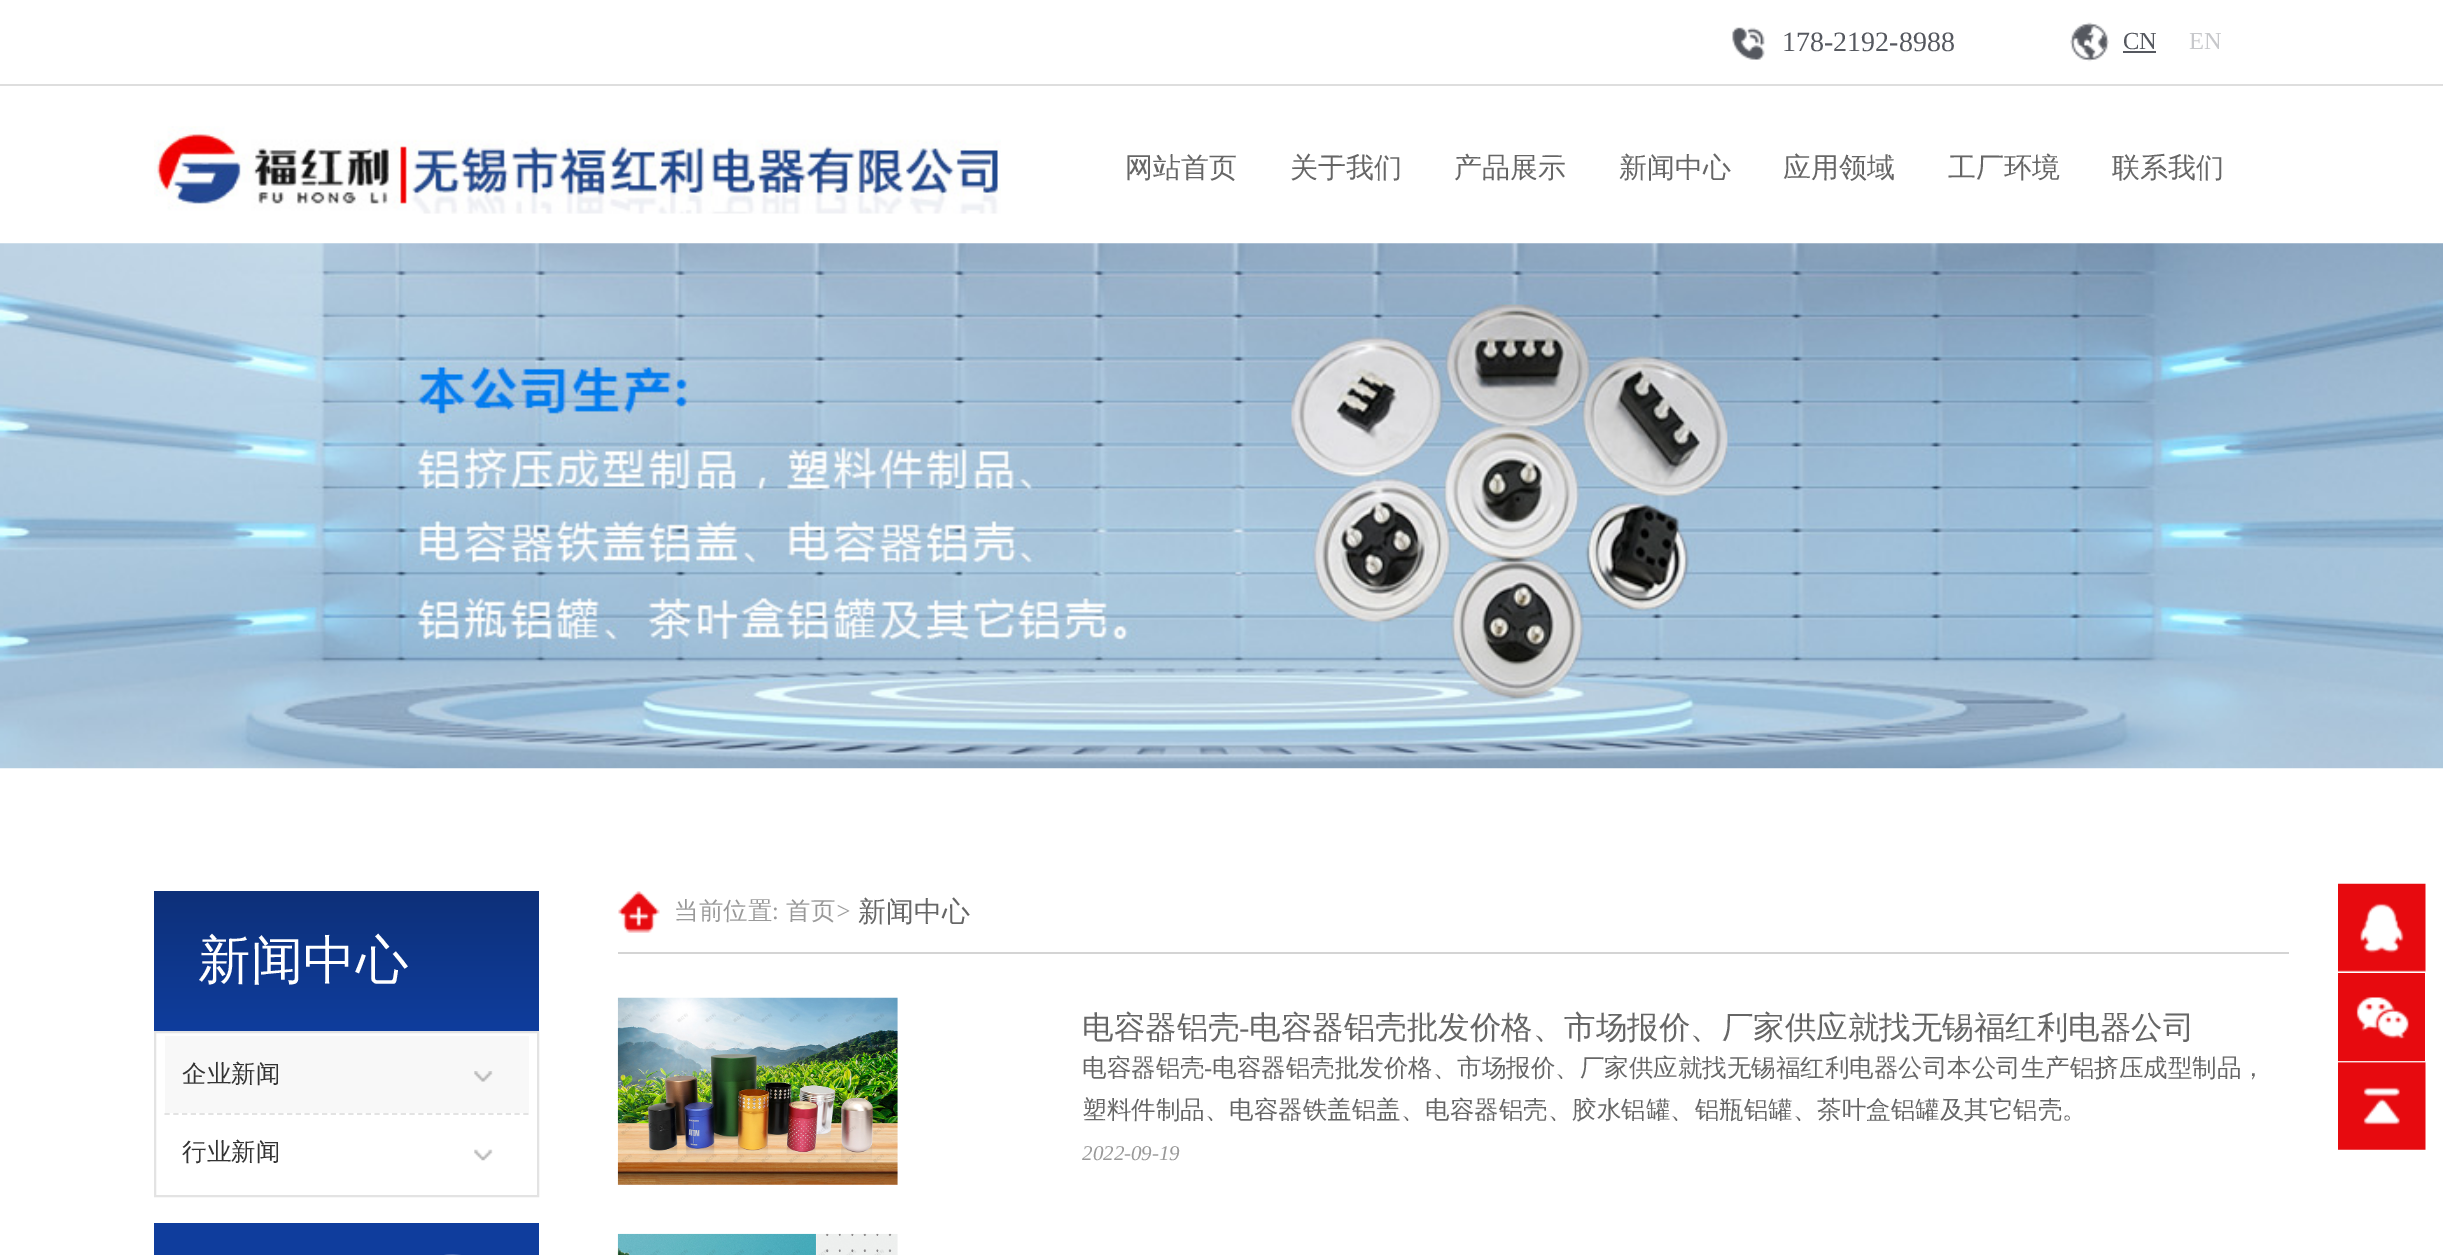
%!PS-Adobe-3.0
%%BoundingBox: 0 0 2443 1255
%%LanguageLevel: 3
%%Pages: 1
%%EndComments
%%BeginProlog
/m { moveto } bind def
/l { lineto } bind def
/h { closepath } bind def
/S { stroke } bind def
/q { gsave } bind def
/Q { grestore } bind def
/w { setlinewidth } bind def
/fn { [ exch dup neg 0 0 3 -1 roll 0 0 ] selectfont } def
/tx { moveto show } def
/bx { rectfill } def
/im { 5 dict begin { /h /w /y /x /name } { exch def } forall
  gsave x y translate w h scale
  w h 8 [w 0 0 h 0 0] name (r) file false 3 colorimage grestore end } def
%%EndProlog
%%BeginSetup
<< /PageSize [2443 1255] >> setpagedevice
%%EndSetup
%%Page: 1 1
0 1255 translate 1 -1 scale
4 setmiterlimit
1 setgray
0 0 2443 1255 bx
0.871 setgray
0 84 2443 2 bx
(image0.raw) 1732 27 33 33 im
/LiberationSerif-Regular 28 fn
0.333 0.345 0.373 setrgbcolor
(178-2192-8988) 1782 51 tx
(image1.raw) 2070 22 39 40 im
/LiberationSerif-Regular 24.5 fn
(CN) 2123 49 tx
2123 51 33 2 bx
0.78 0.784 0.796 setrgbcolor
(EN) 2189 49 tx
(image2.raw) 154 126 847 88 im
/WenQuanYiZenHei-Medium 28 fn
0.4 setgray
(网站首页) 1125 177 tx
(关于我们) 1290 177 tx
(产品展示) 1454 177 tx
(新闻中心) 1619 177 tx
(应用领域) 1783 177 tx
(工厂环境) 1948 177 tx
(联系我们) 2112 177 tx
(image3.raw) 0 243 2443 526 im
q 154 891 m 539 891 l 539 1031 l 154 1031 l h clip newpath
<< /ShadingType 2 /ColorSpace /DeviceRGB /Coords [347 891 347 1031] /Extend [true true] /Function << /FunctionType 2 /Domain [0 1] /C0 [0.051 0.188 0.475] /C1 [0.059 0.239 0.616] /N 1 >> >> shfill Q
/WenQuanYiZenHei-Medium 52.5 fn
1 setgray
(新闻中心) 198 978 tx
0.89 setgray
2 w
155 1032 383 164 rectstroke
0.973 setgray
165 1036 364 77 bx
/WenQuanYiZenHei-Medium 24.5 fn
0.2 setgray
(企业新闻) 182 1082 tx
(image4.raw) 474 1071 19 11 im
0.89 setgray
1.8 w
[5.25 3.5] 0 setdash
164.5 1114 m 528.5 1114 l S
0.2 setgray
(行业新闻) 182 1160 tx
(image5.raw) 474 1149 19 12 im
0.059 0.239 0.616 setrgbcolor
154 1223 385 32 bx
(image6.raw) 444 1254 17 1 im
0.831 setgray
618 952 1671 2 bx
(image7.raw) 618 891 42 42 im
0.6 setgray
(当前位置) 674 919 tx
/LiberationSerif-Regular 24.5 fn
(:) 772 919 tx
/WenQuanYiZenHei-Medium 24.5 fn
(首页) 786 919 tx
/LiberationSerif-Italic 24.5 fn
(>) 835 919 tx
/WenQuanYiZenHei-Medium 28 fn
0.4 setgray
(新闻中心) 858 921 tx
(image8.raw) 617 997 281 188 im
/WenQuanYiZenHei-Medium 31.5 fn
(电容器铝壳) 1082 1038 tx
/LiberationSerif-Regular 31.5 fn
(-) 1239 1038 tx
/WenQuanYiZenHei-Medium 31.5 fn
(电容器铝壳批发价格、市场报价、厂家供应就找无锡福红利电器公司) 1249 1038 tx
/WenQuanYiZenHei-Medium 24.5 fn
(电容器铝壳) 1082 1076 tx
/LiberationSerif-Regular 24.5 fn
(-) 1204 1076 tx
/WenQuanYiZenHei-Medium 24.5 fn
(电容器铝壳批发价格、市场报价、厂家供应就找无锡福红利电器公司本公司生产铝挤压成型制品，) 1212 1076 tx
(塑料件制品、电容器铁盖铝盖、电容器铝壳、胶水铝罐、铝瓶铝罐、茶叶盒铝罐及其它铝壳。) 1082 1118 tx
/LiberationSerif-Italic 21 fn
0.6 setgray
(2022-09-19) 1082 1160 tx
(image9.raw) 617 1233 281 22 im
(image10.raw) 2338 883 88 89 im
(image11.raw) 2338 973 87 88 im
(image12.raw) 2338 1061 88 89 im
showpage
%%EOF
